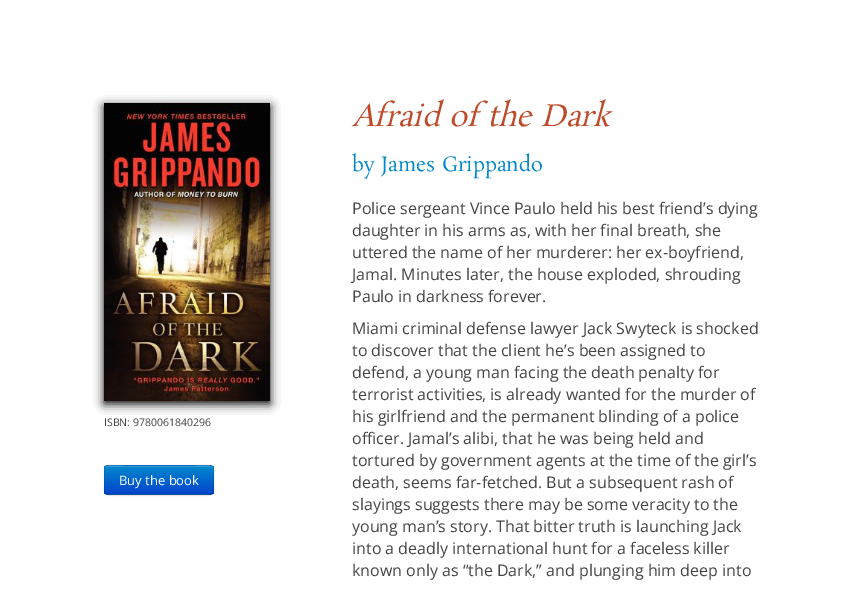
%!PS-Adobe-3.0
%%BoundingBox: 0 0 841 592
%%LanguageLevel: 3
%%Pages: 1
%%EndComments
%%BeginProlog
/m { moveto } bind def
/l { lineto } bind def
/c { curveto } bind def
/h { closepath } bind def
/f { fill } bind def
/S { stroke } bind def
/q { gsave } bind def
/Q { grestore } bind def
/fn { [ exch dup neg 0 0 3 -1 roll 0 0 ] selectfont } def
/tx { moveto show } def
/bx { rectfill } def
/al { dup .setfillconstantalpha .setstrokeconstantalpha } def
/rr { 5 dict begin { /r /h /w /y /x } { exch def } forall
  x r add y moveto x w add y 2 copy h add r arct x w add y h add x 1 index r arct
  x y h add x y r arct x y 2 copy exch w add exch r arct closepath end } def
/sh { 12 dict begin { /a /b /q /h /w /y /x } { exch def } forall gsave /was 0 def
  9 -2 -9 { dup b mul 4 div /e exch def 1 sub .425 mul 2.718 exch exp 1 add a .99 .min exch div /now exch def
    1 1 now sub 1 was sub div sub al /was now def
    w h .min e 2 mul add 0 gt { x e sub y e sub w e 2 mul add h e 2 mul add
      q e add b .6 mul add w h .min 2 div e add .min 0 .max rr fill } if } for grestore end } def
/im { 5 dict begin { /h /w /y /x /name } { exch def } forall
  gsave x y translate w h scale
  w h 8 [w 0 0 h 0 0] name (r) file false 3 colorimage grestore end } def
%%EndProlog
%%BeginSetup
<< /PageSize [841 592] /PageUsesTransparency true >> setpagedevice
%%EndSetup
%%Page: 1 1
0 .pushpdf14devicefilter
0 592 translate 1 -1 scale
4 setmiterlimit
1 setgray
0 0 841 592 bx
0 setgray
104 106 166 298 0 5 1 sh
(image0.raw) 104 103 166 298 im
/OpenSans-Regular 10.5 fn
0.267 setgray
(ISBN: 9780061840296) 104 426 tx
0 setgray
104 466 110 30 4 1 0.05 sh
0 0.427 0.8 setrgbcolor
104 465 110 30 4 rr f
q
104 465 110 30 4 rr clip newpath
q 104 466 m 214 466 l 214 494 l 104 494 l h clip newpath
<< /ShadingType 2 /ColorSpace /DeviceRGB /Coords [159 466 159 494] /Extend [true true] /Function << /FunctionType 2 /Domain [0 1] /C0 [0 0.533 0.8] /C1 [0 0.267 0.8] /N 1 >> >> shfill Q
Q
0.2 al
1 setgray
108 467 m 210 467 l 212 467 213 468 213 470 c 213 461 195 466 193 466 c 125 466 l 123 466 105 461 105 470 c 105 468 106 467 108 467 c h f
0.25 al
0 setgray
212.5 493.5 m 210 494.5 l 107.5 494.5 l 105.5 493.5 l S
0.1 al
105.5 493.5 m 103 491 104.5 486.5 104.5 483.5 c 104.5 461.5 101 465.5 125 465.5 c 193 465.5 l 217 465.5 213.5 461.5 213.5 483.5 c 213.5 486.5 215 491 212.5 493.5 c S
/OpenSans-Regular 13 fn
1 al
1 setgray
(Buy the book) 119 485 tx
/Rosarivo-Italic 30 fn
0.749 0.29 0.161 setrgbcolor
(Afraid of the Dark) 352 126 tx
/Rosarivo-Regular 20 fn
0 0.533 0.8 setrgbcolor
(by James Grippando) 352 171 tx
/OpenSans-Regular 16 fn
0.267 setgray
(Police sergeant Vince Paulo held his best friend’s dying) 352 214 tx
(daughter in his arms as, with her final breath, she) 352 236 tx
(uttered the name of her murderer: her ex-boyfriend,) 352 258 tx
(Jamal. Minutes later, the house exploded, shrouding) 352 280 tx
(Paulo in darkness forever.) 352 302 tx
(Miami criminal defense lawyer Jack Swyteck is shocked) 352 334 tx
(to discover that the client he’s been assigned to) 352 356 tx
(defend, a young man facing the death penalty for) 352 378 tx
(terrorist activities, is already wanted for the murder of) 352 400 tx
(his girlfriend and the permanent blinding of a police) 352 422 tx
(officer. Jamal’s alibi, that he was being held and) 352 444 tx
(tortured by government agents at the time of the girl’s) 352 466 tx
(death, seems far-fetched. But a subsequent rash of) 352 488 tx
(slayings suggests there may be some veracity to the) 352 510 tx
(young man’s story. That bitter truth is launching Jack) 352 532 tx
(into a deadly international hunt for a faceless killer) 352 554 tx
(known only as “the Dark,” and plunging him deep into) 352 576 tx
.poppdf14devicefilter showpage
%%EOF
